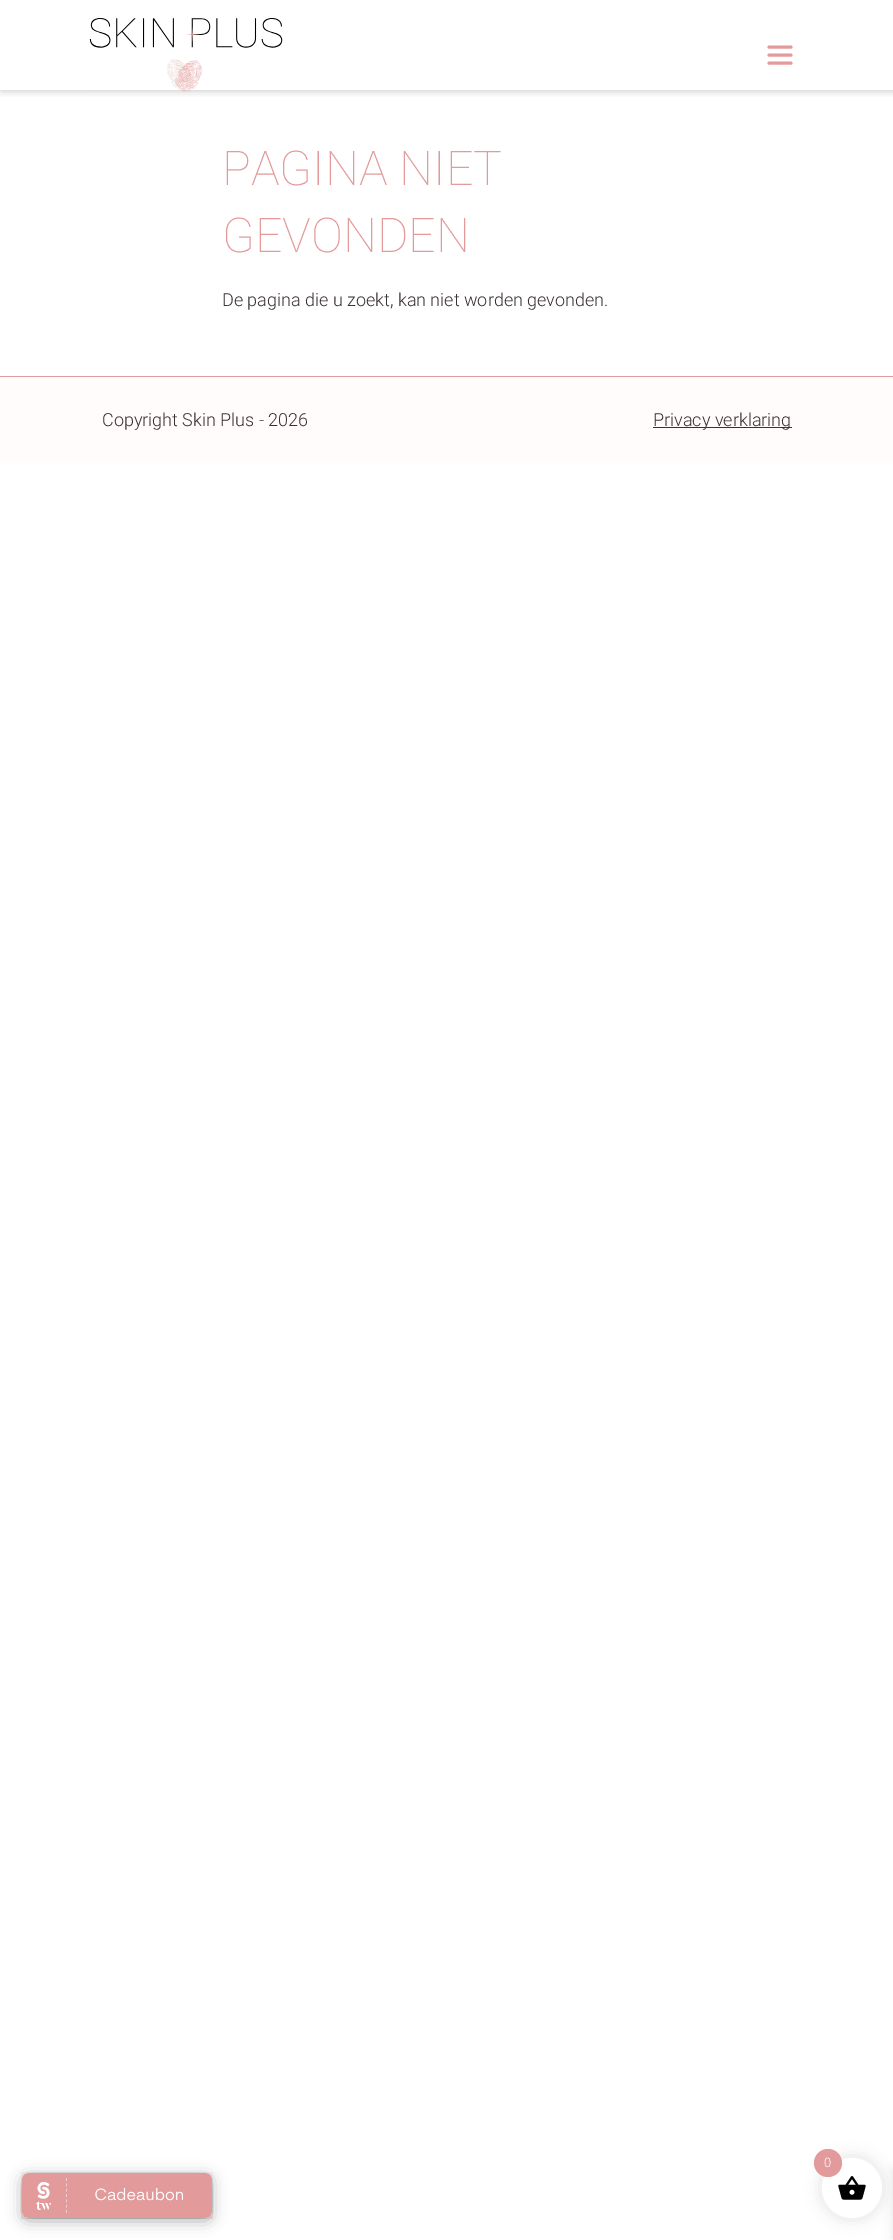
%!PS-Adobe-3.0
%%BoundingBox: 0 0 893 2240
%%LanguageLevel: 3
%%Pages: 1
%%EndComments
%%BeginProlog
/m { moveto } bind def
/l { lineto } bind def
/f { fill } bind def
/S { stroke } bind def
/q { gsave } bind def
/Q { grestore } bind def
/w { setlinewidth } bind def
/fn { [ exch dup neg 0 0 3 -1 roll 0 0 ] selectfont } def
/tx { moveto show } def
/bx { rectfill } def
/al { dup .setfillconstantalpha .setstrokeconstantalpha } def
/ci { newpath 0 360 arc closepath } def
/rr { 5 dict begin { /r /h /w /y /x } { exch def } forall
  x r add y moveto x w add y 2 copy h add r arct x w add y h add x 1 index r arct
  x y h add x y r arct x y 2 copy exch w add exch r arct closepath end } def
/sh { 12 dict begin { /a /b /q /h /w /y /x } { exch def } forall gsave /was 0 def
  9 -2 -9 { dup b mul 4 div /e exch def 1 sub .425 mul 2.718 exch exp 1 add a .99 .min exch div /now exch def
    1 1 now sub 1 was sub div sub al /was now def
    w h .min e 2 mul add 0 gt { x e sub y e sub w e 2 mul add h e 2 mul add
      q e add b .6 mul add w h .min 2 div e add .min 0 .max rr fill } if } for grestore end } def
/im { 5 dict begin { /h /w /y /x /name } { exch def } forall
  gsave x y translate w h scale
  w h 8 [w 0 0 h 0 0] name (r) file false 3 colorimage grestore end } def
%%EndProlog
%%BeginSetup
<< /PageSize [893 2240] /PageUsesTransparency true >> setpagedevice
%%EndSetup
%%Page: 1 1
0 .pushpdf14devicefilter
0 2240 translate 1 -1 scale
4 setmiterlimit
1 setgray
0 0 893 2240 bx
q
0 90 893 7 rectclip
0.227 0.192 0.192 setrgbcolor
2 -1 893 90 0 5 0.4 sh
Q
(image0.raw) 89 18 194 75 im
0.886 0.604 0.608 setrgbcolor
3 w
1 setlinecap
769 47 m 791 47 l 769 55 m 791 55 l 769 63 m 791 63 l S
/Roboto-Thin 48 fn
(PAGINA NIET) 222 185 tx
(GEVONDEN) 222 252 tx
/Roboto-Light 18 fn
0.227 0.192 0.192 setrgbcolor
(De pagina die u zoekt, kan niet worden gevonden.) 222 306 tx
1 0.988 0.984 setrgbcolor
0 377 893 86 bx
0.886 0.604 0.608 setrgbcolor
0 376 893 1 bx
0.227 0.192 0.192 setrgbcolor
(Copyright Skin Plus - 2026) 102 426 tx
653 427 139 1 bx
(Privacy verklaring) 653 426 tx
0 setgray
22 2176 190 45 6 7.5 0.3 sh
(image1.raw) 21 2172 192 47 im
820 2156 64 64 32 7.5 0.1 sh
893 2170 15 69 0 5 0.1 sh
1 setgray
852 2188 30 ci f
(image2.raw) 838 2176 28 24 im
0.886 0.604 0.608 setrgbcolor
828 2163 14 ci f
/Roboto-Light 13 fn
1 setgray
(0) 824 2167 tx
.poppdf14devicefilter showpage
%%EOF
